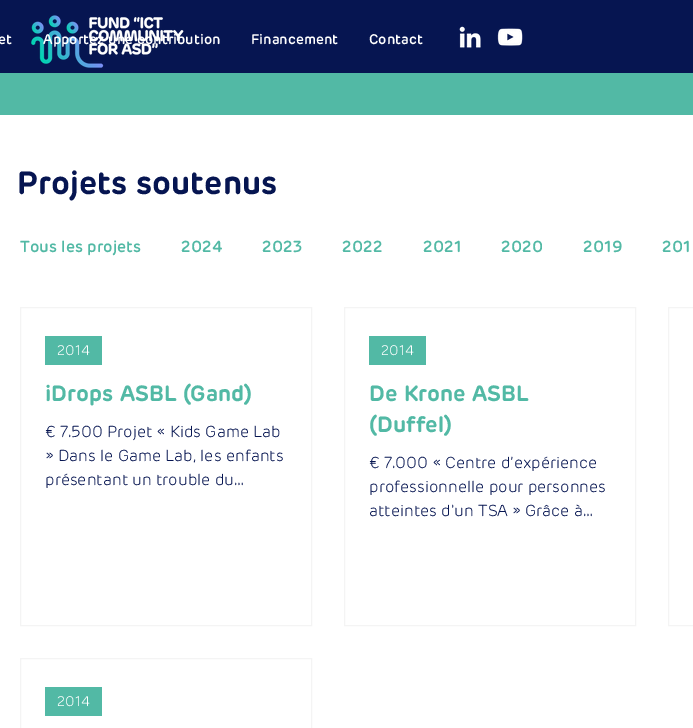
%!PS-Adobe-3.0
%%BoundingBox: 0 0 693 728
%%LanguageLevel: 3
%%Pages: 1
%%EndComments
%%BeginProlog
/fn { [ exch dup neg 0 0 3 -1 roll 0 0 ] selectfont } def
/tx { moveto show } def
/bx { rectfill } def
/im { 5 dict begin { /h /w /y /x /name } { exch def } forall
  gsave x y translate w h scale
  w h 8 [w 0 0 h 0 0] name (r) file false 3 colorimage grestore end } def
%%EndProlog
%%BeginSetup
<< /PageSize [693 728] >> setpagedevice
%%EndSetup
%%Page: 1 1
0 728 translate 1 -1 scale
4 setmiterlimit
1 setgray
0 0 693 728 bx
0.024 0.082 0.318 setrgbcolor
0 0 693 73 bx
(image0.raw) 31 15 153 53 im
/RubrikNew-SemiBold 14 fn
1 setgray
(et) -2 44 tx
(Apportez une contribution) 43 44 tx
(Financement) 251 44 tx
(Contact) 369 44 tx
(image1.raw) 459 26 22 22 im
(image2.raw) 497 28 26 18 im
0.322 0.725 0.647 setrgbcolor
0 73 693 42 bx
/RubrikNew-Bold 32 fn
0.024 0.082 0.318 setrgbcolor
(Projets soutenus) 17 194 tx
/RubrikNew-SemiBold 16 fn
0.322 0.725 0.647 setrgbcolor
(Tous les projets) 20 252 tx
(2024) 181 252 tx
(2023) 262 252 tx
(2022) 342 252 tx
(2021) 423 252 tx
(2020) 501 252 tx
(2019) 583 252 tx
(201) 662 252 tx
0.957 setgray
20.5 307.5 291 318 rectstroke
0.322 0.725 0.647 setrgbcolor
45 336 57 29 bx
/RubrikNew-Light 14 fn
1 setgray
(2014) 57 355 tx
/RubrikNew-Bold 22 fn
0.322 0.725 0.647 setrgbcolor
(iDrops ASBL \(Gand\)) 45 401 tx
/RubrikNew-Light 16 fn
0.024 0.082 0.318 setrgbcolor
(€ 7.500 Projet « Kids Game Lab) 45 437 tx
(» Dans le Game Lab, les enfants) 45 461 tx
(présentant un trouble du…) 45 485 tx
0.957 setgray
344.5 307.5 291 318 rectstroke
0.322 0.725 0.647 setrgbcolor
369 336 57 29 bx
/RubrikNew-Light 14 fn
1 setgray
(2014) 381 355 tx
/RubrikNew-Bold 22 fn
0.322 0.725 0.647 setrgbcolor
(De Krone ASBL) 369 401 tx
(\(Duffel\)) 369 432 tx
/RubrikNew-Light 16 fn
0.024 0.082 0.318 setrgbcolor
(€ 7.000 « Centre d’expérience) 369 468 tx
(professionnelle pour personnes) 369 492 tx
(atteintes d'un TSA » Grâce à…) 369 516 tx
0.957 setgray
668.5 307.5 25 318 rectstroke
20.5 658.5 291 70 rectstroke
0.322 0.725 0.647 setrgbcolor
45 687 57 29 bx
/RubrikNew-Light 14 fn
1 setgray
(2014) 57 706 tx
showpage
%%EOF
